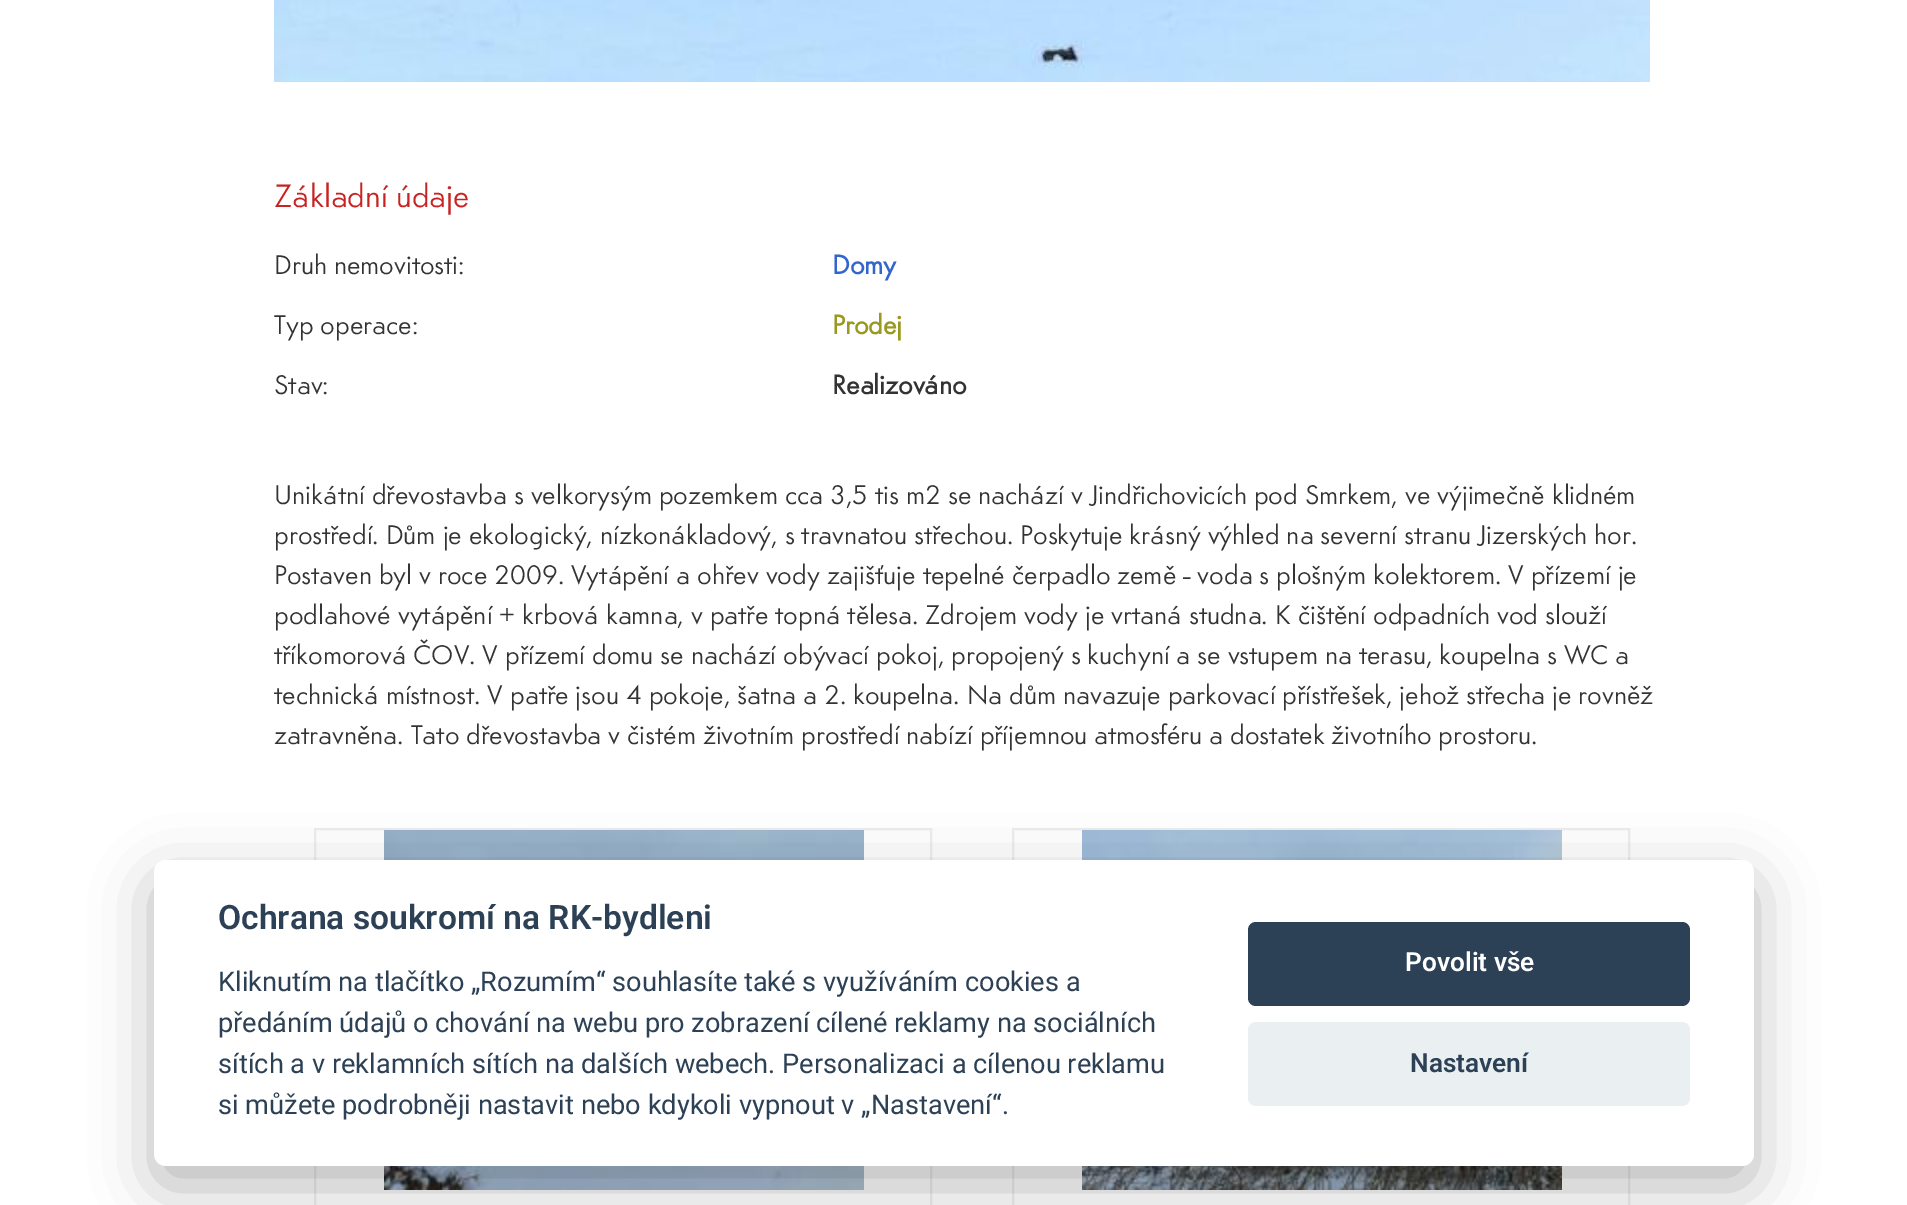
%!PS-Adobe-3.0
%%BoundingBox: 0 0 1907 1205
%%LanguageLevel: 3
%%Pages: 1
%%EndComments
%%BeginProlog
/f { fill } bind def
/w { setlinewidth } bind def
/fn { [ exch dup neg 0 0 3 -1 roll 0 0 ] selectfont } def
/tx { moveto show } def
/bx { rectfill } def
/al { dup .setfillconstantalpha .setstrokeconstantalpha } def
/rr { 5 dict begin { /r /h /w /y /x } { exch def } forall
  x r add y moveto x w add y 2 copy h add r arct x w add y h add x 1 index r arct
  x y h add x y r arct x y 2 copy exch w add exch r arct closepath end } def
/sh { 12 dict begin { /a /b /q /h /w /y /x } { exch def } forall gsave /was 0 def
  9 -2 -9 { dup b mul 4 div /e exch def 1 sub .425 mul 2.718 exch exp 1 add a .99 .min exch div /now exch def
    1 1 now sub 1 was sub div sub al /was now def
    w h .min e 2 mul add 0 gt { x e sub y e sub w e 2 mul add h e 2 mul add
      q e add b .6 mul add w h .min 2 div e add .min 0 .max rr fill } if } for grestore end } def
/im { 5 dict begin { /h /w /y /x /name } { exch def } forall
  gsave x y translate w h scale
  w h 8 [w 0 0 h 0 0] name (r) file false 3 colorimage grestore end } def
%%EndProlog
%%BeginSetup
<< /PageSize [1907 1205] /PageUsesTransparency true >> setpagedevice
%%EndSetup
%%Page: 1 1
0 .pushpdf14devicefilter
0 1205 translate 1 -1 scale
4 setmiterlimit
1 setgray
0 0 1907 1205 bx
(image0.raw) 274 0 1376 82 im
/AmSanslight-Light 33.6 fn
0.776 0.141 0.133 setrgbcolor
(Základní údaje) 274 207 tx
/AmSanslight-Light 28 fn
0.2 setgray
(Druh nemovitosti:) 274 274 tx
/AmSanslight-Bold 28 fn
0.2 0.4 0.8 setrgbcolor
(Domy) 832 274 tx
/AmSanslight-Light 28 fn
0.2 setgray
(Typ operace:) 274 334 tx
/AmSanslight-Bold 28 fn
0.6 0.596 0.122 setrgbcolor
(Prodej) 832 334 tx
/AmSanslight-Light 28 fn
0.2 setgray
(Stav:) 274 394 tx
/AmSanslight-Bold 28 fn
(Realizováno) 832 394 tx
/AmSanslight-Light 28 fn
(Unikátní dřevostavba s velkorysým pozemkem cca 3,5 tis m2 se nachází v Jindřichovicích pod Smrkem, ve výjimečně klidném) 274 504 tx
(prostředí. Dům je ekologický, nízkonákladový, s travnatou střechou. Poskytuje krásný výhled na severní stranu Jizerských hor.) 274 544 tx
(Postaven byl v roce 2009. Vytápění a ohřev vody zajišťuje tepelné čerpadlo země - voda s plošným kolektorem. V přízemí je) 274 584 tx
(podlahové vytápění + krbová kamna, v patře topná tělesa. Zdrojem vody je vrtaná studna. K čištění odpadních vod slouží) 274 624 tx
(tříkomorová ČOV. V přízemí domu se nachází obývací pokoj, propojený s kuchyní a se vstupem na terasu, koupelna s WC a) 274 664 tx
(technická místnost. V patře jsou 4 pokoje, šatna a 2. koupelna. Na dům navazuje parkovací přístřešek, jehož střecha je rovněž) 274 704 tx
(zatravněna. Tato dřevostavba v čistém životním prostředí nabízí příjemnou atmosféru a dostatek životního prostoru.) 274 744 tx
0.933 setgray
2 w
315 829 616 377 rectstroke
(image1.raw) 384 830 480 360 im
1013 829 616 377 rectstroke
(image2.raw) 1082 830 480 360 im
0.008 0.008 0.012 setrgbcolor
154 880 1600 306 12 30 0.28 sh
1 setgray
154 860 1600 306 12 rr f
/Roboto-SemiBold 33.6 fn
0.176 0.255 0.337 setrgbcolor
(Ochrana soukromí na RK-bydleni) 218 929 tx
/Roboto-Regular 27.2 fn
(Kliknutím na tlačítko „Rozumím“ souhlasíte také s využíváním cookies a) 218 991 tx
(předáním údajů o chování na webu pro zobrazení cílené reklamy na sociálních) 218 1032 tx
(sítích a v reklamních sítích na dalších webech. Personalizaci a cílenou reklamu) 218 1073 tx
(si můžete podrobněji nastavit nebo kdykoli vypnout v „Nastavení“.) 218 1114 tx
1248 922 442 84 8 rr f
/Roboto-SemiBold 26.25 fn
1 setgray
(Povolit vše) 1405 971 tx
0.918 0.937 0.949 setrgbcolor
1248 1022 442 84 8 rr f
0.176 0.255 0.337 setrgbcolor
(Nastavení) 1410 1072 tx
.poppdf14devicefilter showpage
%%EOF
